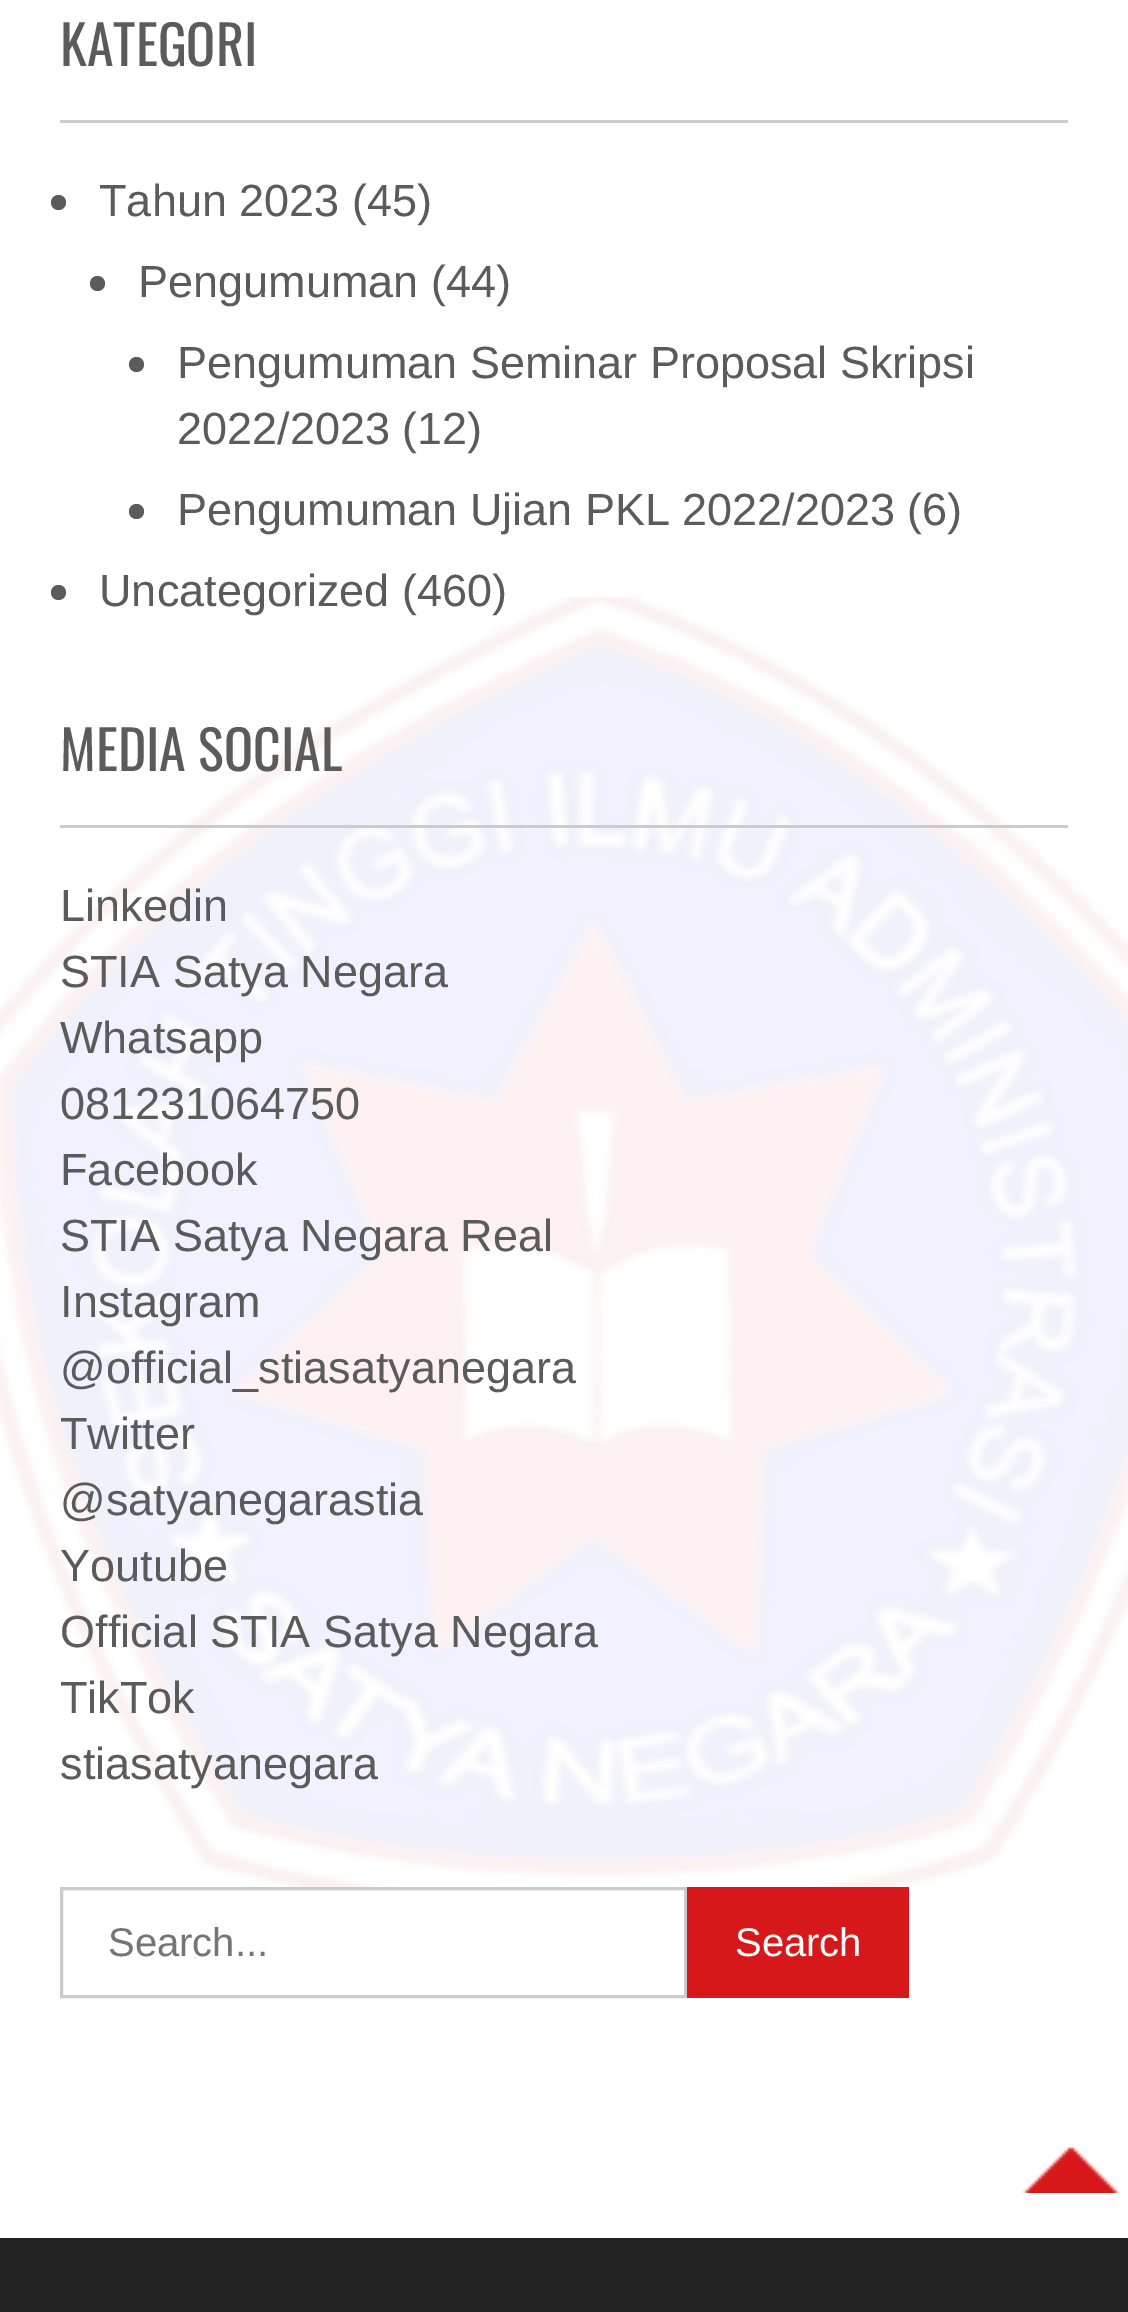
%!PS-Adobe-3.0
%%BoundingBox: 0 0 1128 2312
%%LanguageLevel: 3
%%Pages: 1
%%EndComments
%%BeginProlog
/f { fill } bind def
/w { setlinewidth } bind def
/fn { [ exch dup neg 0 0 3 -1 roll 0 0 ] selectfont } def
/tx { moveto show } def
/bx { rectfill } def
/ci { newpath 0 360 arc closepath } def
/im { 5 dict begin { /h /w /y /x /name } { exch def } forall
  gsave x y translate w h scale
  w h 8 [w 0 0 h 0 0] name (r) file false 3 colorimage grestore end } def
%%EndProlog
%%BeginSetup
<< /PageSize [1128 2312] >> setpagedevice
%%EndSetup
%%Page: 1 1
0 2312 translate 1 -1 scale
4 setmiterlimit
1 setgray
0 0 1128 2312 bx
(image0.raw) 0 596 1128 1322 im
0.8 setgray
60 120 1008 3 bx
/Oswald-Regular 54 fn
0.357 setgray
(KATEGORI) 60 66 tx
58.5 202.5 7.5 ci f
/LiberationSans-Regular 45 fn
(Tahun 2023 \(45\)) 99 216 tx
97.5 283.5 7.5 ci f
(Pengumuman \(44\)) 138 297 tx
136.5 364.5 7.5 ci f
(Pengumuman Seminar Proposal Skripsi) 177 378 tx
(2022/2023 \(12\)) 177 444 tx
136.5 511.5 7.5 ci f
(Pengumuman Ujian PKL 2022/2023 \(6\)) 177 525 tx
58.5 592.5 7.5 ci f
(Uncategorized \(460\)) 99 606 tx
0.8 setgray
60 825 1008 3 bx
/Oswald-Regular 54 fn
0.357 setgray
(MEDIA SOCIAL) 60 771 tx
/LiberationSans-Regular 45 fn
(Linkedin) 60 921 tx
(STIA Satya Negara) 60 987 tx
(Whatsapp) 60 1053 tx
(081231064750) 60 1119 tx
(Facebook) 60 1185 tx
(STIA Satya Negara Real) 60 1251 tx
(Instagram) 60 1317 tx
(@official_stiasatyanegara) 60 1383 tx
(Twitter) 60 1449 tx
(@satyanegarastia) 60 1515 tx
(Youtube) 60 1581 tx
(Official STIA Satya Negara) 60 1647 tx
(TikTok) 60 1713 tx
(stiasatyanegara) 60 1779 tx
1 setgray
299 1890 385 28 bx
0.8 setgray
3 w
61.5 1888.5 624 108 rectstroke
/LiberationSans-Regular 40 fn
0.459 setgray
(Search...) 108 1956 tx
0.839 0.094 0.102 setrgbcolor
687 1887 222 111 bx
1 setgray
(Search) 735 1956 tx
0.133 setgray
0 2238 1128 74 bx
(image1.raw) 1022 2147 98 46 im
showpage
%%EOF
